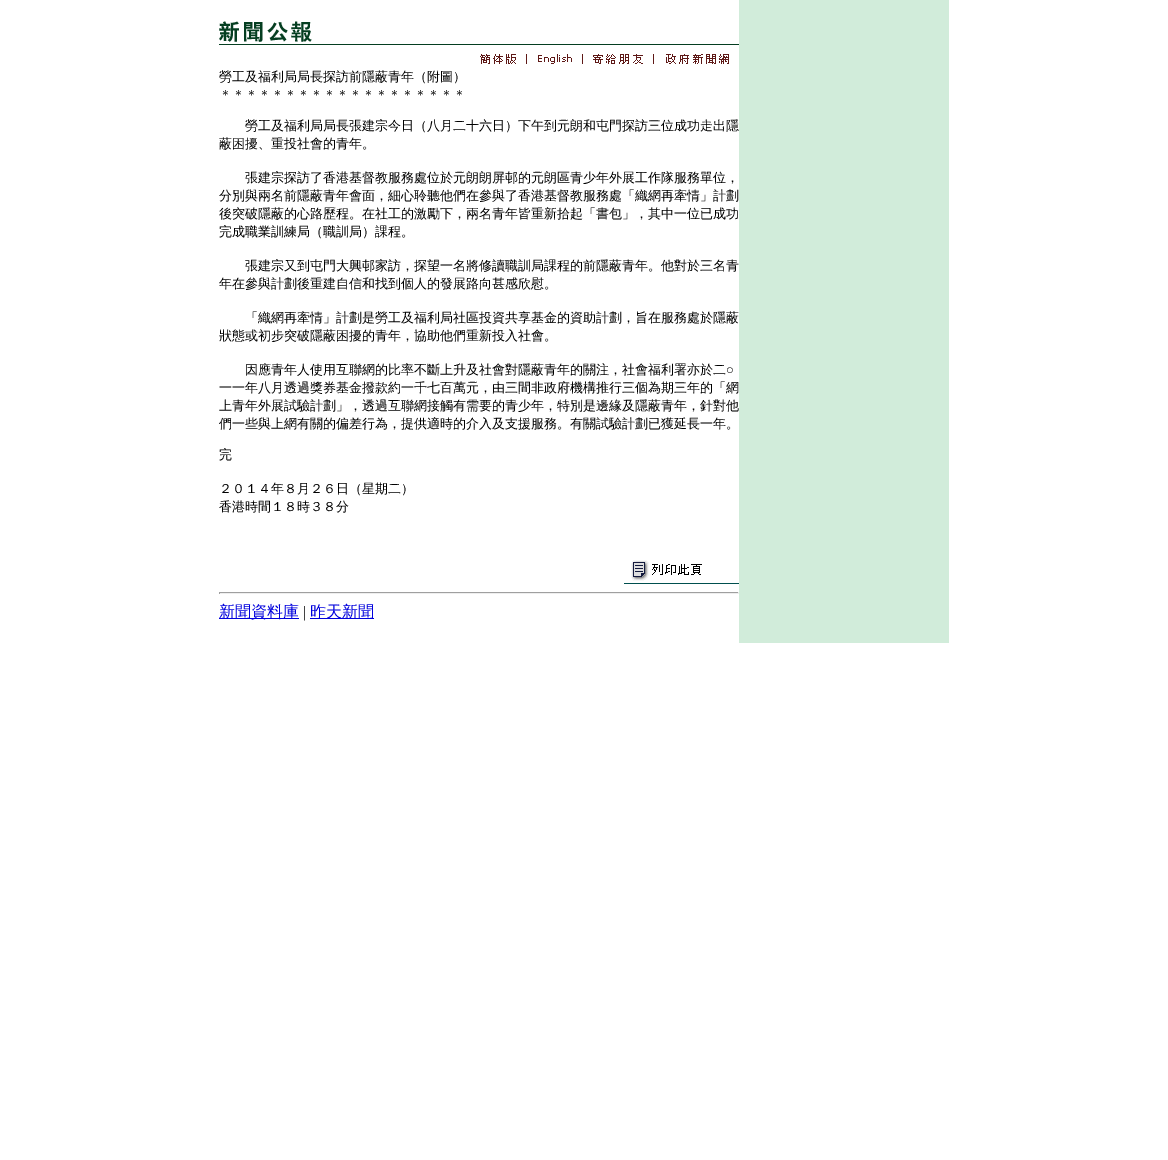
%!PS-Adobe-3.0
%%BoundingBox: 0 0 1168 1160
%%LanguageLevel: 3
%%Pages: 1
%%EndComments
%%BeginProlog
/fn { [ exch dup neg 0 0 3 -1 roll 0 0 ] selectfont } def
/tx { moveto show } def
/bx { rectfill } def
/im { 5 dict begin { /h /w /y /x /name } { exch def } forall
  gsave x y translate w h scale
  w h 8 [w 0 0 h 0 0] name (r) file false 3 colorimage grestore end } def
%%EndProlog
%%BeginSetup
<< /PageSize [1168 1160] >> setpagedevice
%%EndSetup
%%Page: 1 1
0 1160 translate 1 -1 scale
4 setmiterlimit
1 setgray
0 0 1168 1160 bx
0.82 0.925 0.855 setrgbcolor
739 0 210 643 bx
0.02 0.243 0.129 setrgbcolor
219 44 520 1 bx
(image0.raw) 219 21 93 21 im
(image1.raw) 480 54 47 10 im
(image2.raw) 538 54 45 10 im
(image3.raw) 593 54 61 10 im
(image4.raw) 666 54 63 10 im
/WenQuanYiZenHei-Medium 13 fn
0 setgray
(勞工及福利局局長探訪前隱蔽青年（附圖）) 219 81 tx
(＊＊＊＊＊＊＊＊＊＊＊＊＊＊＊＊＊＊＊) 219 99 tx
(勞工及福利局局長張建宗今日（八月二十六日）下午到元朗和屯門探訪三位成功走出隱) 245 130 tx
(蔽困擾、重投社會的青年。) 219 148 tx
(張建宗探訪了香港基督教服務處位於元朗朗屏邨的元朗區青少年外展工作隊服務單位，) 245 182 tx
(分別與兩名前隱蔽青年會面，細心聆聽他們在參與了香港基督教服務處「織網再牽情」計劃) 219 200 tx
(後突破隱蔽的心路歷程。在社工的激勵下，兩名青年皆重新拾起「書包」，其中一位已成功) 219 218 tx
(完成職業訓練局（職訓局）課程。) 219 236 tx
(張建宗又到屯門大興邨家訪，探望一名將修讀職訓局課程的前隱蔽青年。他對於三名青) 245 270 tx
(年在參與計劃後重建自信和找到個人的發展路向甚感欣慰。) 219 288 tx
(「織網再牽情」計劃是勞工及福利局社區投資共享基金的資助計劃，旨在服務處於隱蔽) 245 322 tx
(狀態或初步突破隱蔽困擾的青年，協助他們重新投入社會。) 219 340 tx
(因應青年人使用互聯網的比率不斷上升及社會對隱蔽青年的關注，社會福利署亦於二) 245 374 tx
/LiberationSerif-Regular 13 fn
(○) 726 374 tx
/WenQuanYiZenHei-Medium 13 fn
(一一年八月透過獎券基金撥款約一千七百萬元，由三間非政府機構推行三個為期三年的「網) 219 392 tx
(上青年外展試驗計劃」，透過互聯網接觸有需要的青少年，特別是邊緣及隱蔽青年，針對他) 219 410 tx
(們一些與上網有關的偏差行為，提供適時的介入及支援服務。有關試驗計劃已獲延長一年。) 219 428 tx
(完) 219 459 tx
(２０１４年８月２６日（星期二）) 219 493 tx
(香港時間１８時３８分) 219 511 tx
(image5.raw) 631 560 71 21 im
0 0.31 0.306 setrgbcolor
624 583 115 1 bx
0.624 setgray
219 592 520 1 bx
0.933 setgray
738 592 1 2 bx
219 593 520 1 bx
0.624 setgray
219 592 1 2 bx
0 0 0.867 setrgbcolor
219 618 80 1 bx
/WenQuanYiZenHei-Medium 16 fn
(新聞資料庫) 219 617 tx
/LiberationSerif-Regular 16 fn
0 setgray
(|) 303 617 tx
0 0 0.867 setrgbcolor
310 618 64 1 bx
/WenQuanYiZenHei-Medium 16 fn
(昨天新聞) 310 617 tx
showpage
%%EOF
